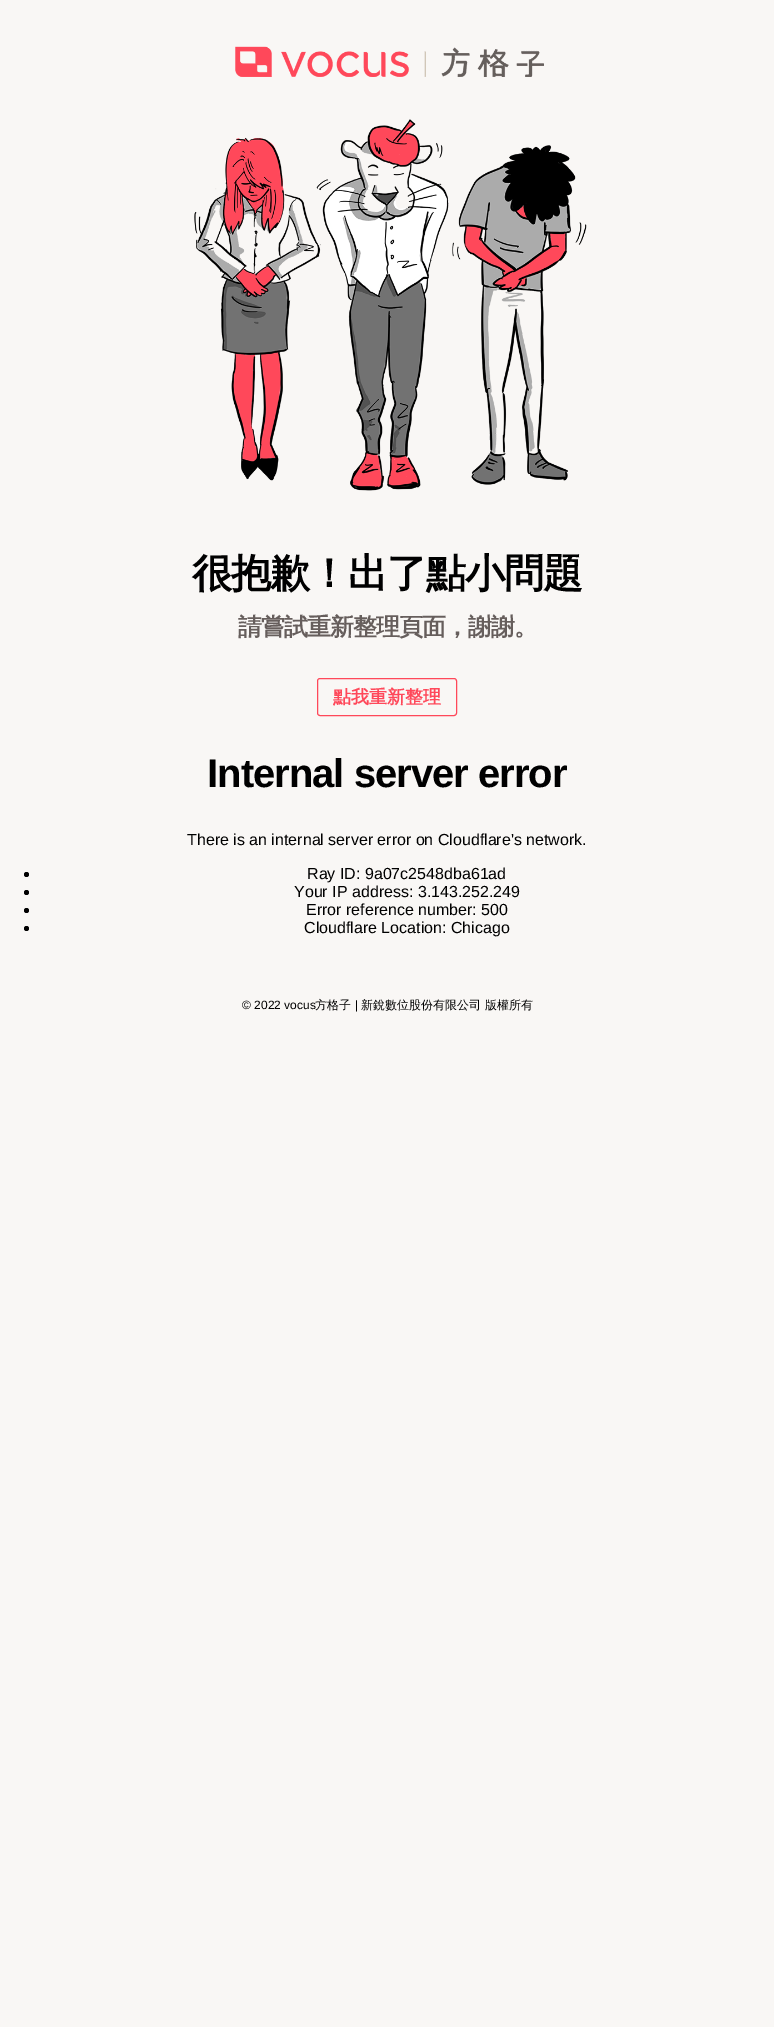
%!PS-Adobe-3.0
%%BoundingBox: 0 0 774 2027
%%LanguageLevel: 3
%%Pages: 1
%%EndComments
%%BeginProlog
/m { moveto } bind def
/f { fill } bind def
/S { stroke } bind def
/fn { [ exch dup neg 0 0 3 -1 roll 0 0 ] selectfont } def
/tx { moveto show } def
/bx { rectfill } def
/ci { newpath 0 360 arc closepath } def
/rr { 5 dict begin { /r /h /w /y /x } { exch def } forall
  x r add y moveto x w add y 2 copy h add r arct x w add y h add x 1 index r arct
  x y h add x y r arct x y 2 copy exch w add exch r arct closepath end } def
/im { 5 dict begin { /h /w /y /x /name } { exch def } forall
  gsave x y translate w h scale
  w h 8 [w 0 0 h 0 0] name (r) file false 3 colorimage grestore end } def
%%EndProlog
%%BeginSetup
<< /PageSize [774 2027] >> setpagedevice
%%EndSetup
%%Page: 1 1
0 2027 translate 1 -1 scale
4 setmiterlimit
0.976 0.969 0.961 setrgbcolor
0 0 774 2027 bx
(image0.raw) 194 46 393 445 im
/WenQuanYiZenHei-Bold 40 fn
0 setgray
192 587 m -1 0 (很抱歉！出了點小問題) ashow
/WenQuanYiZenHei-Bold 24 fn
0.4 0.369 0.361 setrgbcolor
238 635 m -1 0 (請嘗試重新整理頁面，謝謝。) ashow
1 0.282 0.353 setrgbcolor
317.5 678.5 139 37 2.5 rr S
/WenQuanYiZenHei-Bold 18 fn
(點我重新整理) 333 703 tx
/LiberationSans-Bold 40 fn
0 setgray
207 787 m -1 0 (Internal server error) ashow
/LiberationSans-Regular 16 fn
(There is an internal server error on Cloudflare's network.) 187 845 tx
26.5 874.5 2.5 ci f
(Ray ID: 9a07c2548dba61ad) 307 879 tx
26.5 892.5 2.5 ci f
(Your IP address: 3.143.252.249) 294 897 tx
26.5 910.5 2.5 ci f
(Error reference number: 500) 306 915 tx
26.5 928.5 2.5 ci f
(Cloudflare Location: Chicago) 304 933 tx
/LiberationSans-Regular 12 fn
(© 2022 vocus) 242 1009 tx
/WenQuanYiZenHei-Medium 12 fn
(方格子) 315 1009 tx
/LiberationSans-Regular 12 fn
(|) 355 1009 tx
/WenQuanYiZenHei-Medium 12 fn
(新銳數位股份有限公司 版權所有) 361 1009 tx
showpage
%%EOF
